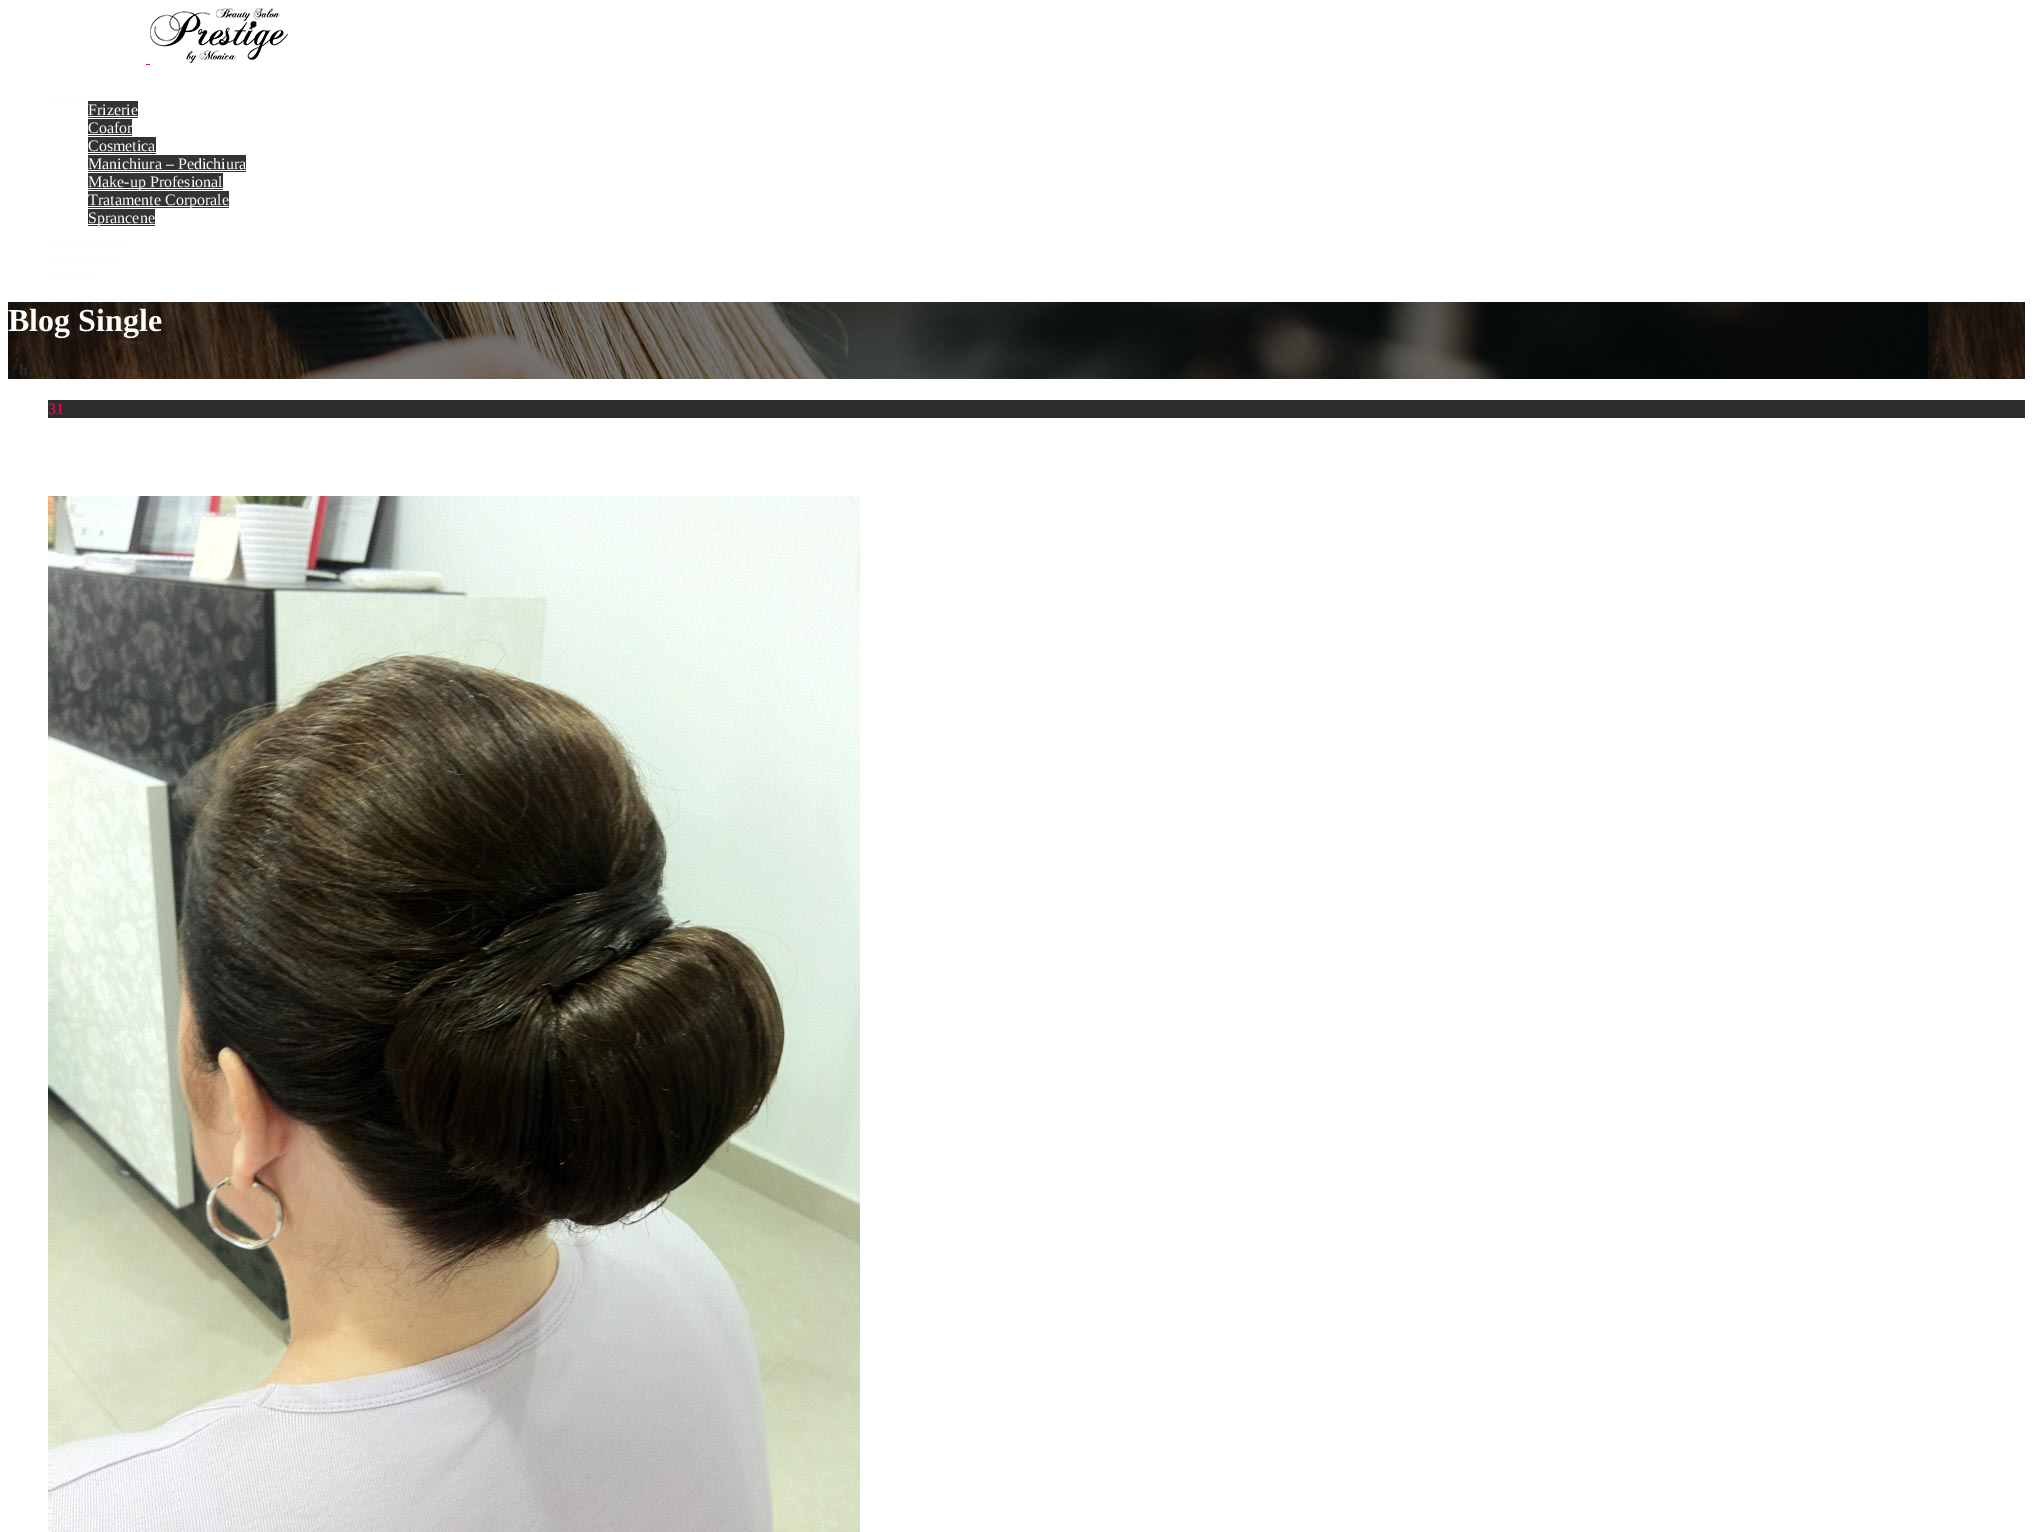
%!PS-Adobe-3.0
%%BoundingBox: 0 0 2033 1532
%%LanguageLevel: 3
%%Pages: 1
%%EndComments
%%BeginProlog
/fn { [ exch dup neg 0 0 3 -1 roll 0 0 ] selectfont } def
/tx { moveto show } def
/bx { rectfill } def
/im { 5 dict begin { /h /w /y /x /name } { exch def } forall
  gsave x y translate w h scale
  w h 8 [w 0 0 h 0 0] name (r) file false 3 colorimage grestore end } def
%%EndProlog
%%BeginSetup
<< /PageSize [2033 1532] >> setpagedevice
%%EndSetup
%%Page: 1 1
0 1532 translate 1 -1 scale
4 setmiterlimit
1 setgray
0 0 2033 1532 bx
(image0.raw) 150 8 138 55 im
0.961 0.024 0.369 setrgbcolor
146 64 4 1 bx
0.988 setgray
48 98 50 1 bx
0.2 setgray
88 101 50 17 bx
/LiberationSerif-Regular 16 fn
0.988 setgray
(Frizerie) 88 115 tx
88 116 50 1 bx
0.2 setgray
88 119 44 17 bx
0.988 setgray
(Coafor) 88 133 tx
88 134 44 1 bx
0.2 setgray
88 137 68 17 bx
0.988 setgray
(Cosmetica) 88 151 tx
88 152 68 1 bx
0.2 setgray
88 155 158 17 bx
0.988 setgray
(Manichiura – Pedichiura) 88 169 tx
88 170 158 1 bx
0.2 setgray
88 173 135 17 bx
0.988 setgray
88 188 135 1 bx
(Make-up Profesional) 88 187 tx
0.2 setgray
88 191 141 17 bx
0.988 setgray
88 206 141 1 bx
(Tratamente Corporale) 88 205 tx
0.2 setgray
88 209 67 17 bx
0.988 setgray
88 224 67 1 bx
(Sprancene) 88 223 tx
48 242 80 1 bx
48 260 72 1 bx
48 278 50 1 bx
(image1.raw) 8 302 2017 77 im
/LiberationSerif-Bold 32 fn
(Blog Single) 8 331 tx
/LiberationSerif-Bold 16 fn
0.176 setgray
(h) 19 375 tx
48 400 1977 18 bx
/LiberationSerif-Regular 16 fn
0.961 0.024 0.369 setrgbcolor
(31) 48 414 tx
(image2.raw) 48 496 812 1036 im
showpage
%%EOF
